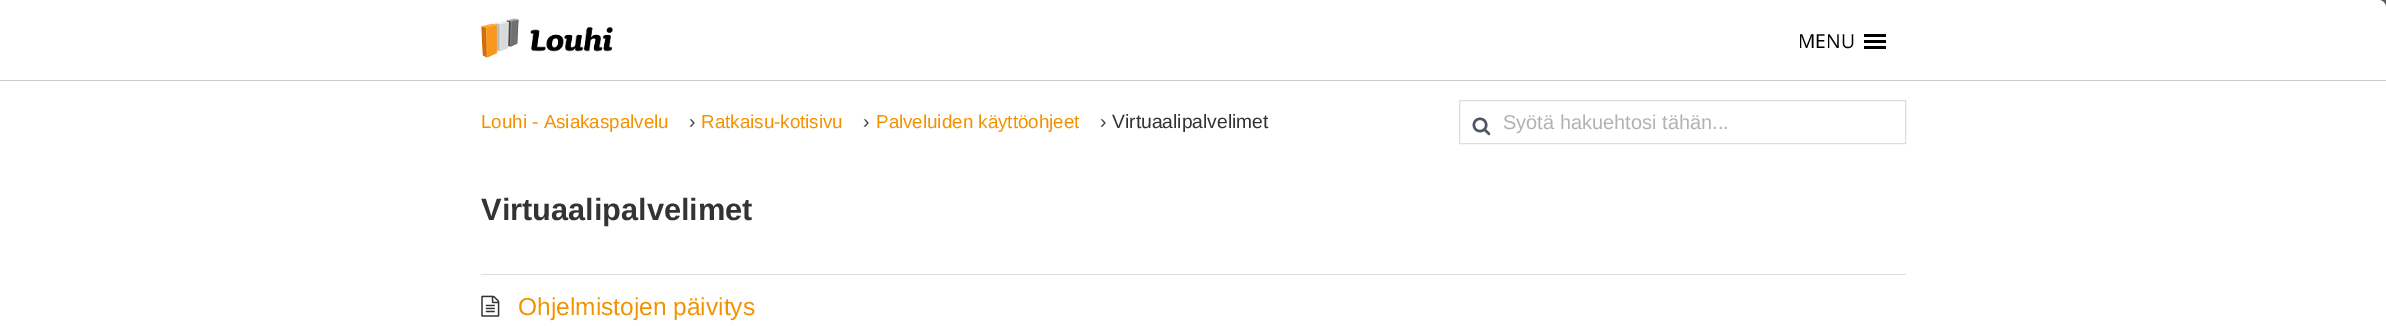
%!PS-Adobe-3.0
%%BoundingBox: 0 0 2386 326
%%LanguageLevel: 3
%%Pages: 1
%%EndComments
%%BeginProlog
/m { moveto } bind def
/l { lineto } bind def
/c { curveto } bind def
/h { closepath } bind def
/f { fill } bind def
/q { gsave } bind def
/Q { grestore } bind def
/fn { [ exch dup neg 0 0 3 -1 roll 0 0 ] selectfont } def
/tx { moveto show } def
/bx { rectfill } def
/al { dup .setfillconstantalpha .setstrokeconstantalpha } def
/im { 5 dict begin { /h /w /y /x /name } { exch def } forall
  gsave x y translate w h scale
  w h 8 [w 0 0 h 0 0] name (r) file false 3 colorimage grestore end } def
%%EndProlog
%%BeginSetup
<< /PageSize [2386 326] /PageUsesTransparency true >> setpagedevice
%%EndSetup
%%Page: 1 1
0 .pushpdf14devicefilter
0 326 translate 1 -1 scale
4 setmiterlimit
1 setgray
0 0 2386 326 bx
q 2378 0 m 2386 0 l 2386 8 l 2378 8 l h clip newpath
<< /ShadingType 2 /ColorSpace /DeviceRGB /Coords [2237 -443 2237 81] /Extend [true true] /Function << /FunctionType 2 /Domain [0 1] /C0 [0.647 0.647 0.647] /C1 [0.314 0.314 0.314] /N 1 >> >> shfill Q
8 0 m 2378 0 l 2382.5 0 2386 3.5 2386 8 c 2386 81 l 0 81 l 0 8 l 0 3.5 3.5 0 8 0 c h f
0.5 al
8 1 m 2379 1 l 2383 1 2386 5 2386 9 c 2386 8 l 2386 4 2382 0 2378 0 c 8 0 l 4 0 0 4 0 8 c 0 9 l 0 5 3 1 8 1 c h f
1 al
0.8 setgray
0 80 2386 1 bx
(image0.raw) 481 18 132 40 im
/OpenSans-Regular 19.25 fn
0 setgray
(MENU) 1798 48 tx
1864 40 22 3 bx
1864 34 22 3 bx
1864 46 22 3 bx
/LiberationSans-Regular 18.75 fn
0.953 0.573 0 setrgbcolor
(Louhi - Asiakaspalvelu) 481 128 tx
/LiberationSans-Regular 19.25 fn
0.251 0.239 0.239 setrgbcolor
(›) 689 128 tx
/LiberationSans-Regular 18.75 fn
0.953 0.573 0 setrgbcolor
(Ratkaisu-kotisivu) 701 128 tx
/LiberationSans-Regular 19.25 fn
0.251 0.239 0.239 setrgbcolor
(›) 863 128 tx
/LiberationSans-Regular 18.75 fn
0.953 0.573 0 setrgbcolor
(Palveluiden käyttöohjeet) 876 128 tx
/LiberationSans-Regular 19.25 fn
0.251 0.239 0.239 setrgbcolor
(›) 1100 128 tx
0.2 setgray
(Virtuaalipalvelimet) 1112 128 tx
0.867 setgray
1459.5 100.5 446 43 rectstroke
(image1.raw) 1472 117 19 19 im
/LiberationSans-Regular 20 fn
0.698 setgray
(Syötä hakuehtosi tähän...) 1503 129 tx
0.867 setgray
481 274 1425 1 bx
/LiberationSans-Bold 30.75 fn
0.2 setgray
(Virtuaalipalvelimet) 481 220 tx
(image2.raw) 481 295 19 22 im
/LiberationSans-Regular 24.5 fn
0.953 0.573 0 setrgbcolor
(Ohjelmistojen päivitys) 518 315 tx
.poppdf14devicefilter showpage
%%EOF
